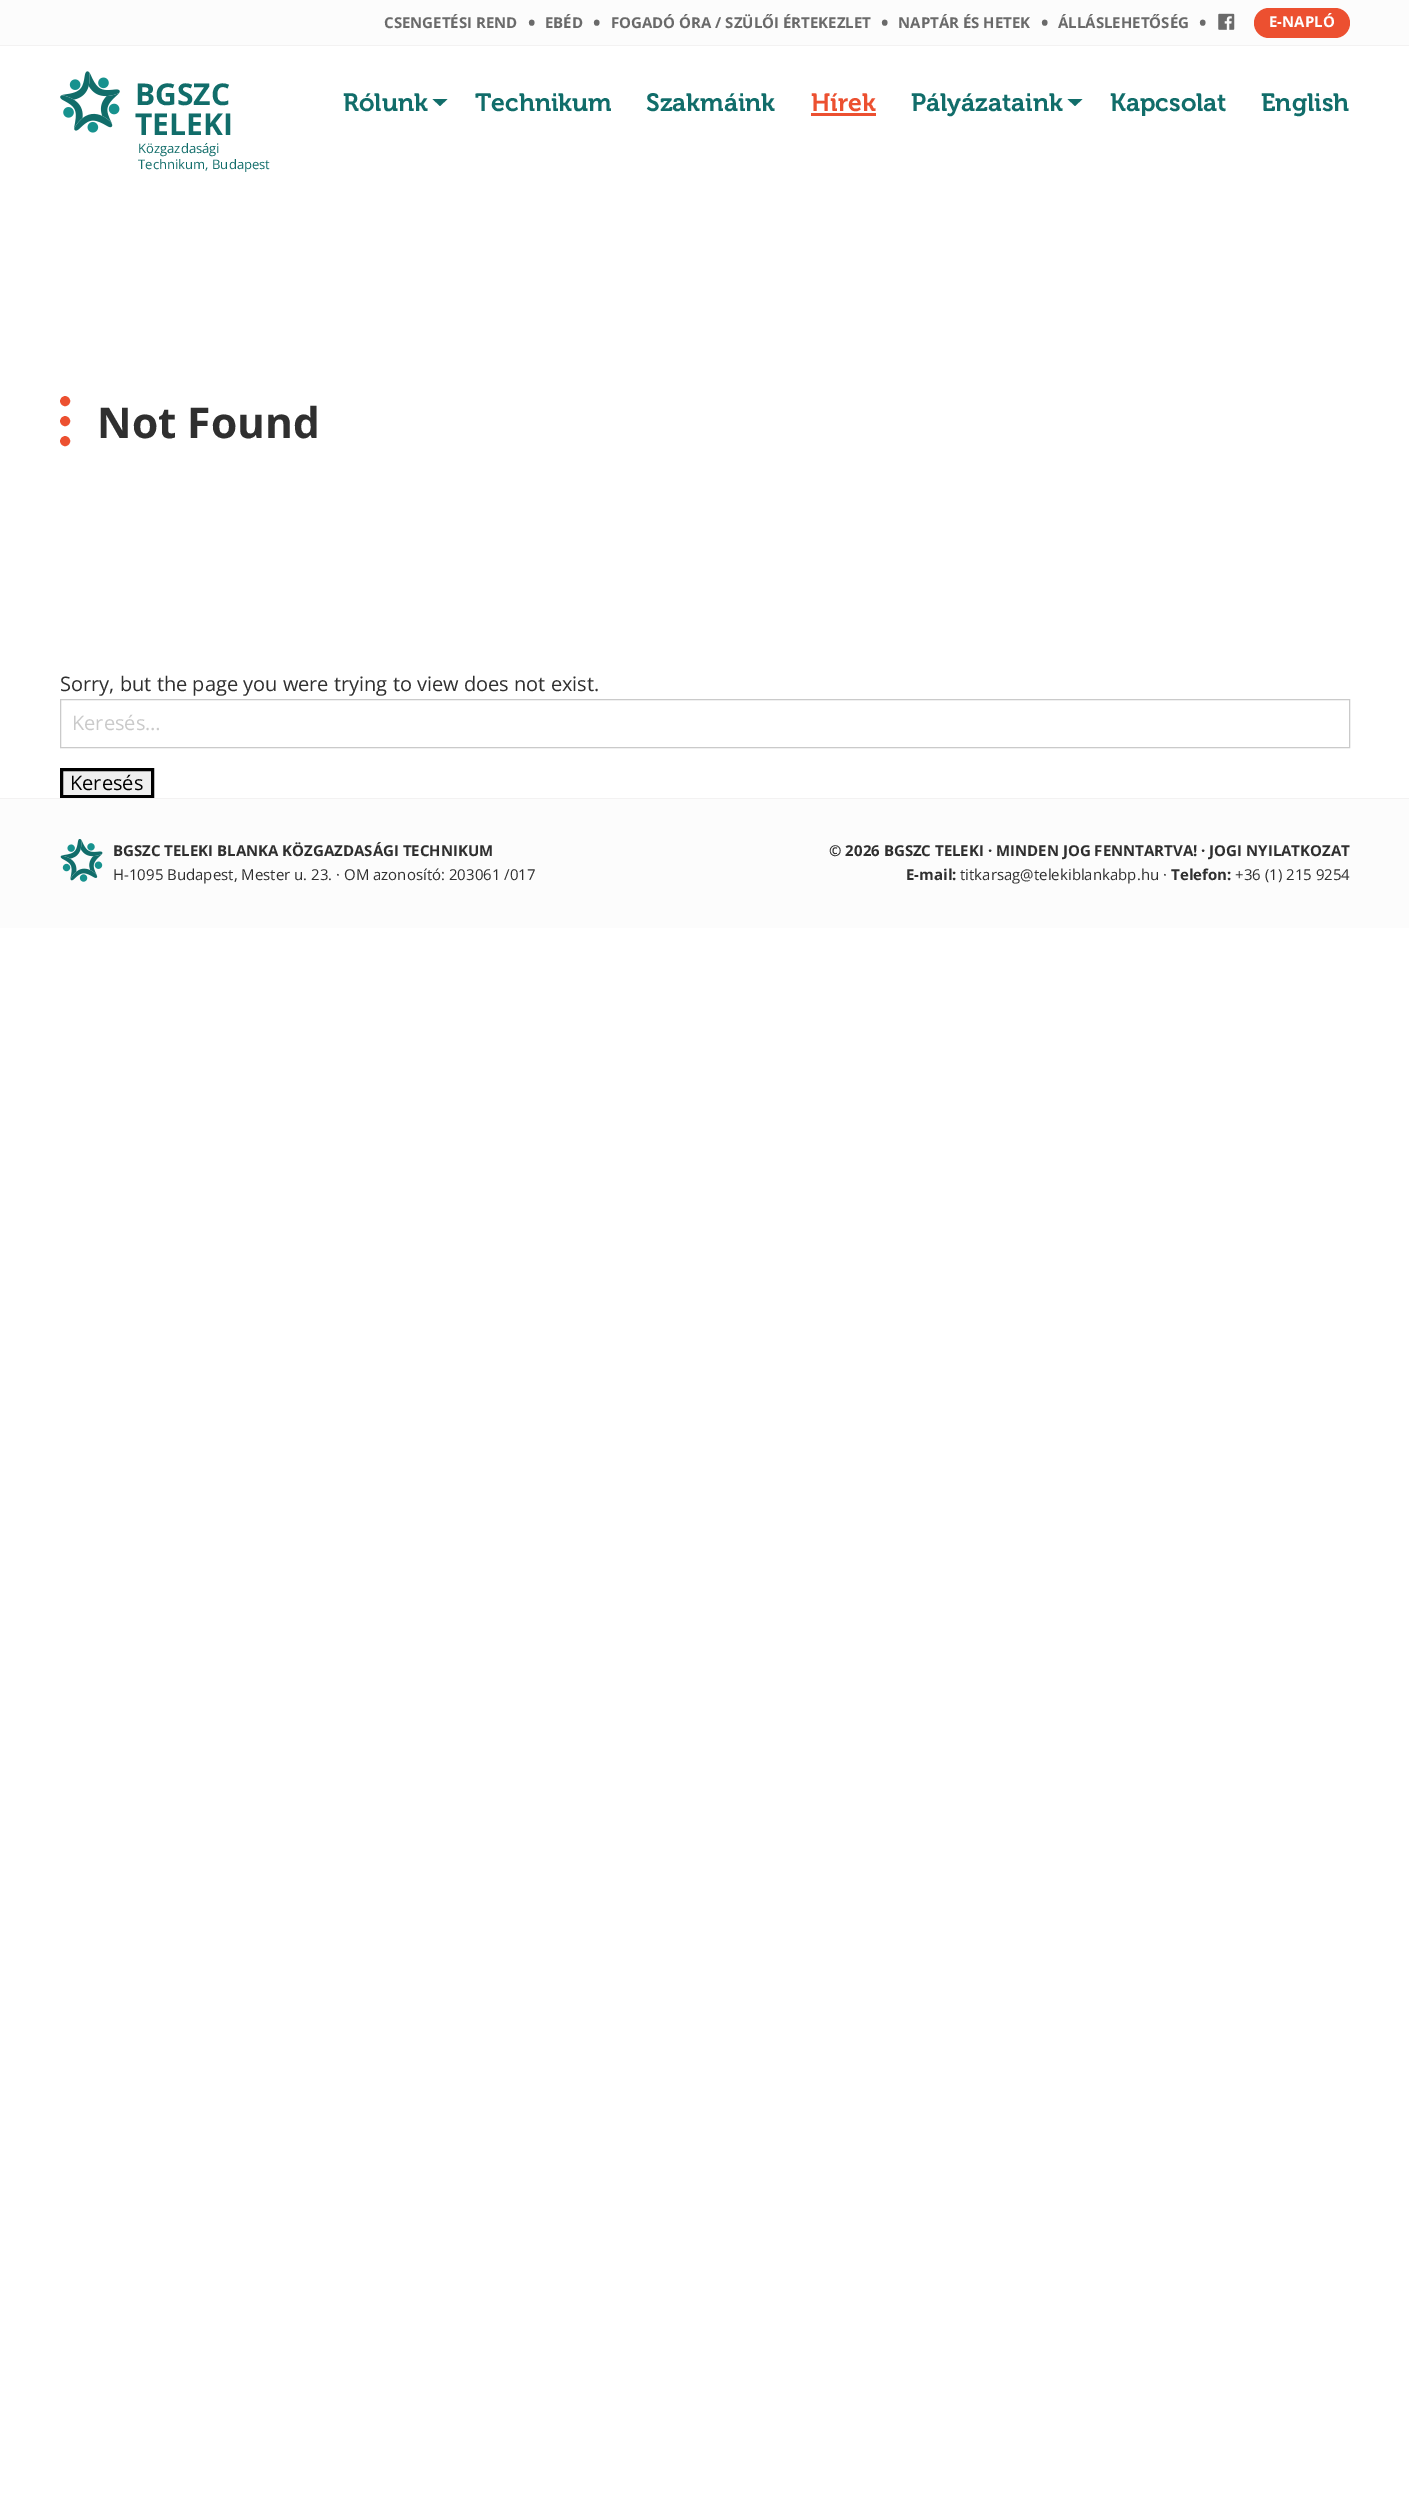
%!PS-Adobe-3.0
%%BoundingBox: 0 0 1409 2503
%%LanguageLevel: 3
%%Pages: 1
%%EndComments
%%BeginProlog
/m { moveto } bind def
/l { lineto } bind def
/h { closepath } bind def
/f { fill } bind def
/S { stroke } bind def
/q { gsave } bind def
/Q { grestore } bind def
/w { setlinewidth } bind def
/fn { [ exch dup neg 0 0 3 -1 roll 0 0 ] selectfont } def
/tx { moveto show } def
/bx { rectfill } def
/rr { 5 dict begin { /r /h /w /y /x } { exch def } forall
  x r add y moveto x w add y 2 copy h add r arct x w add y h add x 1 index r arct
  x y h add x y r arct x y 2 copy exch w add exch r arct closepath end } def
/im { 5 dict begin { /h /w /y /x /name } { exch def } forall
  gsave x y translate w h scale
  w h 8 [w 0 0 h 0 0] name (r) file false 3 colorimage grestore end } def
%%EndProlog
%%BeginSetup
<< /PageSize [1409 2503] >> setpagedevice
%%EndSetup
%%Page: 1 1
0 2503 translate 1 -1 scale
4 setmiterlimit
1 setgray
0 0 1409 2503 bx
0.988 setgray
0 0 1409 45 bx
0.953 0.949 0.949 setrgbcolor
0 45 1409 1 bx
/OpenSans-Bold 15 fn
0.416 setgray
(CSENGETÉSI REND) 384 28 tx
/OpenSans-Bold 20 fn
(•) 528 30 tx
/OpenSans-Bold 15 fn
(EBÉD) 545 28 tx
/OpenSans-Bold 20 fn
(•) 593 30 tx
/OpenSans-Bold 15 fn
(FOGADÓ ÓRA / SZÜLŐI ÉRTEKEZLET) 611 28 tx
/OpenSans-Bold 20 fn
(•) 881 30 tx
/OpenSans-Bold 15 fn
(NAPTÁR ÉS HETEK) 898 28 tx
/OpenSans-Bold 20 fn
(•) 1041 30 tx
/OpenSans-Bold 15 fn
(ÁLLÁSLEHETŐSÉG) 1058 28 tx
/OpenSans-Bold 20 fn
(•) 1199 30 tx
(image0.raw) 1218 13 17 17 im
0.925 0.314 0.188 setrgbcolor
1254 8 96 30 15 rr f
/OpenSans-Bold 15 fn
0.996 setgray
(E-NAPLÓ) 1269 27 tx
(image1.raw) 60 71 60 62 im
/OpenSans-Bold 30 fn
0.067 0.427 0.416 setrgbcolor
(BGSZC) 135 105 tx
(TELEKI) 135 135 tx
/OpenSans-Regular 13.1 fn
(Közgazdasági) 138 153 tx
(Technikum, Budapest) 138 169 tx
/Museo-Regular 25 fn
(Rólunk) 343 111 tx
432.5 99 m 447.5 99 l 440 106 l h f
(Technikum) 475 111 tx
(Szakmáink) 646 111 tx
0.925 0.314 0.188 setrgbcolor
(Hírek) 811 111 tx
811 113 65 3 bx
0.067 0.427 0.416 setrgbcolor
(Pályázataink) 911 111 tx
1067.5 99 m 1082.5 99 l 1075 106 l h f
(Kapcsolat) 1110 111 tx
(English) 1261 111 tx
0.925 0.314 0.188 setrgbcolor
10 w
1 setlinecap
[0 20] 0 setdash
65 401 m 65 444 l S
/OpenSans-Bold 42.5 fn
0.184 setgray
(Not Found) 97 438 tx
/OpenSans-Regular 20 fn
(Sorry, but the page you were trying to view does not exist.) 60 691 tx
0.792 setgray
1 w
0 setlinecap
[] 0 setdash
60.5 699.5 1289 48 rectstroke
(Keresés…) 72 730 tx
0.937 setgray
61.5 769.5 m 152.5 769.5 l 152.5 796.5 l 61.5 796.5 l h q f Q
0 setgray
3 w
S
(Keresés) 70 790 tx
0.988 setgray
0 799 1409 129 bx
0.953 0.949 0.949 setrgbcolor
0 798 1409 1 bx
(image2.raw) 60 839 43 43 im
/OpenSans-Bold 15 fn
0.184 setgray
(BGSZC TELEKI BLANKA KÖZGAZDASÁGI TECHNIKUM) 113 856 tx
/OpenSans-Regular 15 fn
(H-1095 Budapest, Mester u. 23. · OM azonosító: 203061 /017) 113 880 tx
/OpenSans-Bold 15 fn
(© 2026 BGSZC TELEKI · MINDEN JOG FENNTARTVA! · JOGI NYILATKOZAT) 829 856 tx
(E-mail:) 906 880 tx
/OpenSans-Regular 15 fn
(titkarsag@telekiblankabp.hu ·) 960 880 tx
/OpenSans-Bold 15 fn
(Telefon:) 1171 880 tx
/OpenSans-Regular 15 fn
(+36 \(1\) 215 9254) 1235 880 tx
showpage
%%EOF
